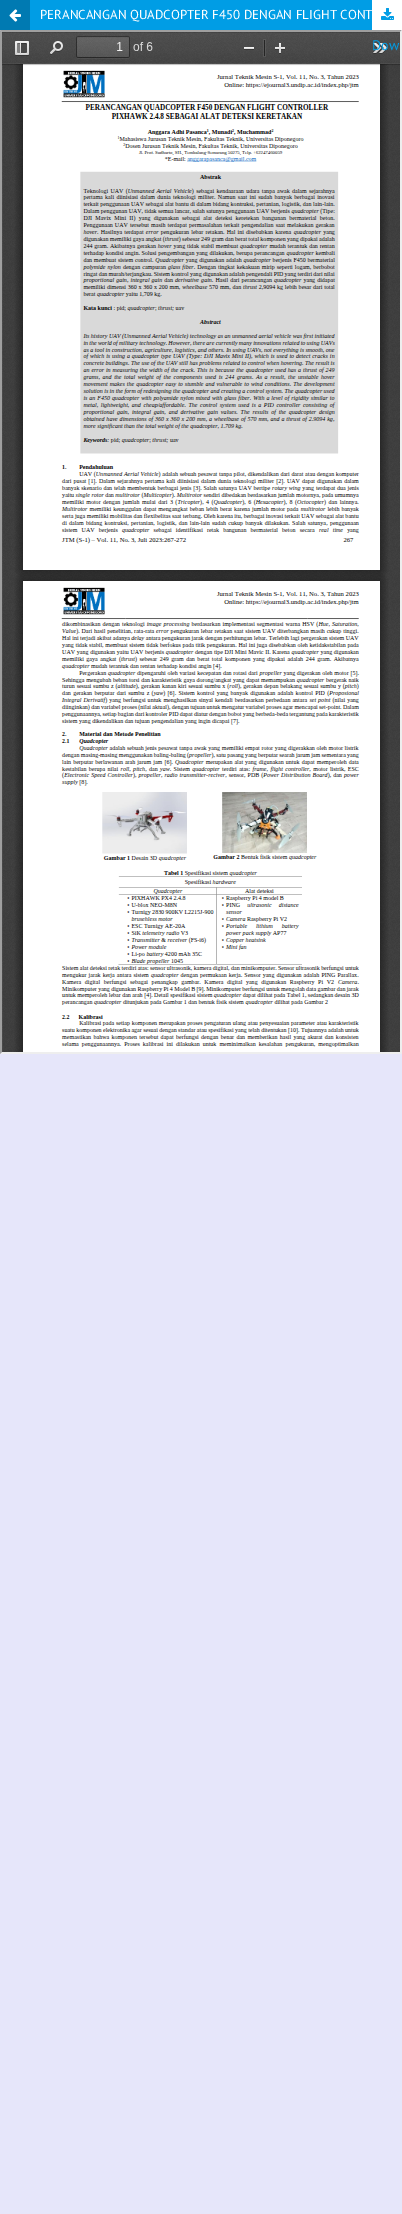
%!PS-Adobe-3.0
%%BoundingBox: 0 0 402 2214
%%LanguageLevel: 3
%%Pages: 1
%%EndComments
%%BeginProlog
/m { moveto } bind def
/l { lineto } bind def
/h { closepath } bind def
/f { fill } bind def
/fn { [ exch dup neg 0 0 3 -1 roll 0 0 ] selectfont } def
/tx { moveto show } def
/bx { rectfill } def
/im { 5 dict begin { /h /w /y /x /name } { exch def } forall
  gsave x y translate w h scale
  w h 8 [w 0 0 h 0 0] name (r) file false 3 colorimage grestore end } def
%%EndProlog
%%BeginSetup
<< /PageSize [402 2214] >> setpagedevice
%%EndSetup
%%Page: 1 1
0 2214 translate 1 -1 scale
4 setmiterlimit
0.902 0.902 0.98 setrgbcolor
0 0 402 2214 bx
0 0.616 0.898 setrgbcolor
30 0 342 30 bx
0 0.478 0.698 setrgbcolor
0 0 30 30 bx
(image0.raw) 9 9 12 13 im
/PTSans-Regular 13 fn
1 setgray
(PERANCANGAN QUADCOPTER F450 DENGAN FLIGHT CONT) 40 19 tx
372 0 30 30 bx
(image1.raw) 381 8 13 12 im
(image2.raw) 2 32 398 1020 im
/PTSans-Regular 14 fn
0 0.616 0.898 setrgbcolor
(Dow) 372 50 tx
0.624 setgray
0 30 m 402 30 l 400 32 l 2 32 l h f
0.933 setgray
402 30 m 402 1054 l 400 1052 l 400 32 l h f
402 1054 m 0 1054 l 2 1052 l 400 1052 l h f
0.624 setgray
0 1054 m 0 30 l 2 32 l 2 1052 l h f
showpage
%%EOF
